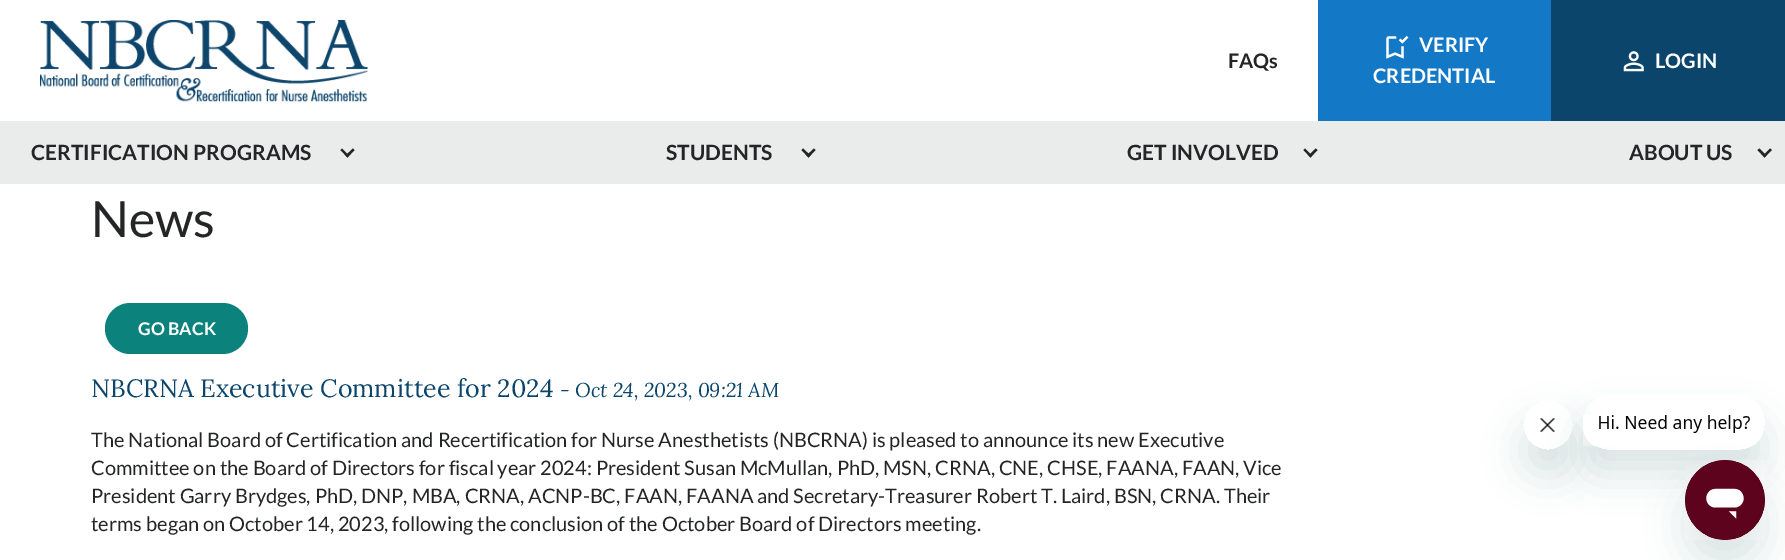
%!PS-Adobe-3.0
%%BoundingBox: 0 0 1785 560
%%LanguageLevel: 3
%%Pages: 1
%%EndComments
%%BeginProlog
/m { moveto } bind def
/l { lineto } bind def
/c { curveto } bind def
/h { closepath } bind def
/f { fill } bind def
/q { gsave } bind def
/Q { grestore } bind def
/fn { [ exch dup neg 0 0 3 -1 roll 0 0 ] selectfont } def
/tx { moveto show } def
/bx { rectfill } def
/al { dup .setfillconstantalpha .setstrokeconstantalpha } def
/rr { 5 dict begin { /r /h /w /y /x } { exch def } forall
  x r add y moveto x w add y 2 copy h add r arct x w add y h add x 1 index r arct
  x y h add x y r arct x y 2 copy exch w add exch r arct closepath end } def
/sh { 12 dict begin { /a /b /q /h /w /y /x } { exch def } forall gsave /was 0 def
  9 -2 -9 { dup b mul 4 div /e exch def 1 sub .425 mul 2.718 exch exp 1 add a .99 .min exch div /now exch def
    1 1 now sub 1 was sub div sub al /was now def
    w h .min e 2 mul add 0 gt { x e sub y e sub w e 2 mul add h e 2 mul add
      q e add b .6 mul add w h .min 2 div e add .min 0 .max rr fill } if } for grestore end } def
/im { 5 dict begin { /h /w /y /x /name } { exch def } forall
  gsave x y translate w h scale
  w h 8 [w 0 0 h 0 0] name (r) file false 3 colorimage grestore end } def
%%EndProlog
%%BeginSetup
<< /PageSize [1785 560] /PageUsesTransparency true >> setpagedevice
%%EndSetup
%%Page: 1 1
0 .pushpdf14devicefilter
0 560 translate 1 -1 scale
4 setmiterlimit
1 setgray
0 0 1785 560 bx
(image0.raw) 40 20 328 82 im
/Lato-Bold 20 fn
0.141 0.145 0.149 setrgbcolor
(FAQs) 1228 68 tx
0.075 0.475 0.78 setrgbcolor
1318 0 233 121 bx
(image1.raw) 1386 35 23 24 im
1 setgray
(VERIFY) 1419 52 tx
(CREDENTIAL) 1373 83 tx
0.043 0.271 0.424 setrgbcolor
1551 0 234 121 bx
(image2.raw) 1623 51 21 21 im
1 setgray
(LOGIN) 1655 68 tx
0.918 0.922 0.922 setrgbcolor
0 121 1785 63 bx
/Lato-Bold 21 fn
0.141 0.145 0.149 setrgbcolor
(CERTIFICATION PROGRAMS) 31 160 tx
353 148.5 m 354.5 150 l 347.5 157.5 l 345.5 155.5 l h f
342 148.5 m 349 155.5 l 347.5 157.5 l 340.5 150 l h f
(STUDENTS) 666 160 tx
814 148.5 m 815.5 150 l 808.5 157.5 l 806.5 155.5 l h f
803 148.5 m 810.5 155.5 l 808.5 157.5 l 801.5 150 l h f
(GET INVOLVED) 1127 160 tx
1315.5 148.5 m 1317.5 150 l 1310.5 157.5 l 1308.5 155.5 l h f
1305 148.5 m 1312 155.5 l 1310.5 157.5 l 1303.5 150 l h f
(ABOUT US) 1629 160 tx
1770 148.5 m 1772 150 l 1764.5 157.5 l 1763 155.5 l h f
1759.5 148.5 m 1766.5 155.5 l 1764.5 157.5 l 1757.5 150 l h f
/Lato-Regular 50 fn
(News) 91 237 tx
0.047 0.51 0.49 setrgbcolor
105 303 143 51 25.5 rr f
/Lato-Bold 17.5 fn
1 setgray
(GO BACK) 138 335 tx
/Lora-Regular 25 fn
0.043 0.271 0.424 setrgbcolor
(NBCRNA Executive Committee for 2024) 91 397 tx
/Lora-Italic 20 fn
(- Oct 24, 2023, 09:21 AM) 560 397 tx
/Lato-Regular 20 fn
0.141 0.145 0.149 setrgbcolor
(The National Board of Certification and Recertification for Nurse Anesthetists \(NBCRNA\) is pleased to announce its new Executive) 91 447 tx
(Committee on the Board of Directors for fiscal year 2024: President Susan McMullan, PhD, MSN, CRNA, CNE, CHSE, FAANA, FAAN, Vice) 91 475 tx
(President Garry Brydges, PhD, DNP, MBA, CRNA, ACNP-BC, FAAN, FAANA and Secretary-Treasurer Robert T. Laird, BSN, CRNA. Their) 91 503 tx
(terms began on October 14, 2023, following the conclusion of the October Board of Directors meeting.) 91 531 tx
q
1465 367 m 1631 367 l 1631 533 l 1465 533 l h 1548 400 m 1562 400 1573 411 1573 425 c 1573 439 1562 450 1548 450 c 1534 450 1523 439 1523 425 c 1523 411 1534 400 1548 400 c h eoclip newpath
0.09 0.286 0.302 setrgbcolor
1523 425 50 50 25 19 0.15 sh
Q
(image4.raw) 1540 418 15 14 im
q
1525 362 m 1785 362 l 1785 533 l 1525 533 l h 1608 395 m 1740 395 l 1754 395 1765 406 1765 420 c 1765 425 l 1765 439 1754 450 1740 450 c 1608 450 l 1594 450 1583 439 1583 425 c 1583 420 l 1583 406 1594 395 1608 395 c h eoclip newpath
0.09 0.286 0.302 setrgbcolor
1583 420 182 55 25 19 0.15 sh
Q
(image3.raw) 1583 415 167 31 im
0.09 0.286 0.302 setrgbcolor
1685 485 80 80 40 19 0.15 sh
(image5.raw) 1685 460 80 80 im
.poppdf14devicefilter showpage
%%EOF
